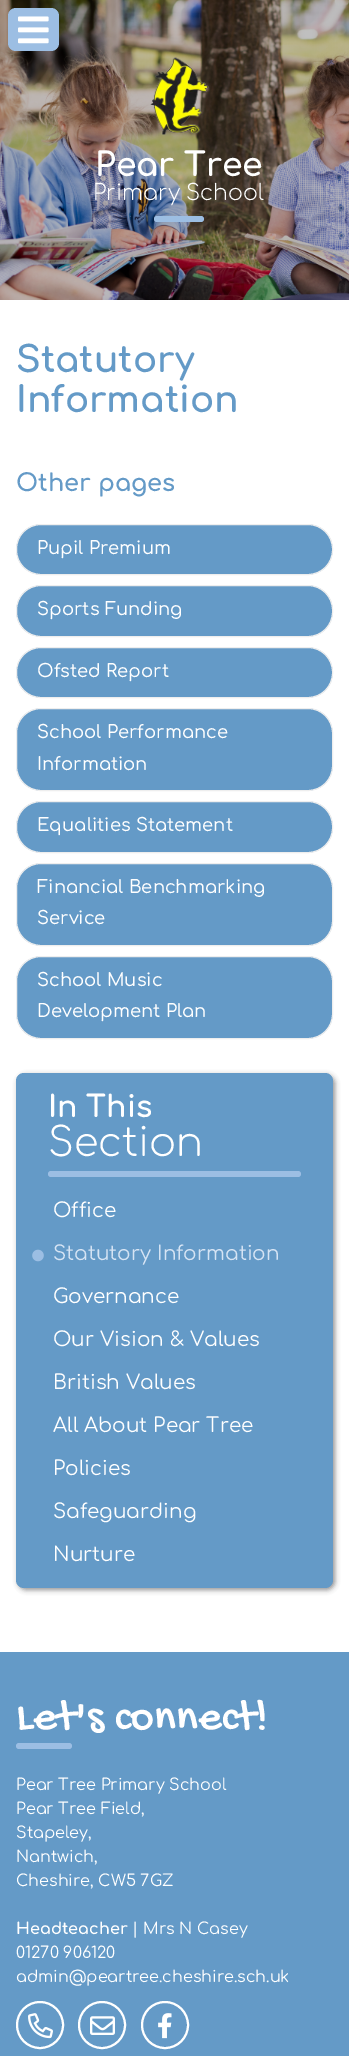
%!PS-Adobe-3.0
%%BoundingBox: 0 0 349 2056
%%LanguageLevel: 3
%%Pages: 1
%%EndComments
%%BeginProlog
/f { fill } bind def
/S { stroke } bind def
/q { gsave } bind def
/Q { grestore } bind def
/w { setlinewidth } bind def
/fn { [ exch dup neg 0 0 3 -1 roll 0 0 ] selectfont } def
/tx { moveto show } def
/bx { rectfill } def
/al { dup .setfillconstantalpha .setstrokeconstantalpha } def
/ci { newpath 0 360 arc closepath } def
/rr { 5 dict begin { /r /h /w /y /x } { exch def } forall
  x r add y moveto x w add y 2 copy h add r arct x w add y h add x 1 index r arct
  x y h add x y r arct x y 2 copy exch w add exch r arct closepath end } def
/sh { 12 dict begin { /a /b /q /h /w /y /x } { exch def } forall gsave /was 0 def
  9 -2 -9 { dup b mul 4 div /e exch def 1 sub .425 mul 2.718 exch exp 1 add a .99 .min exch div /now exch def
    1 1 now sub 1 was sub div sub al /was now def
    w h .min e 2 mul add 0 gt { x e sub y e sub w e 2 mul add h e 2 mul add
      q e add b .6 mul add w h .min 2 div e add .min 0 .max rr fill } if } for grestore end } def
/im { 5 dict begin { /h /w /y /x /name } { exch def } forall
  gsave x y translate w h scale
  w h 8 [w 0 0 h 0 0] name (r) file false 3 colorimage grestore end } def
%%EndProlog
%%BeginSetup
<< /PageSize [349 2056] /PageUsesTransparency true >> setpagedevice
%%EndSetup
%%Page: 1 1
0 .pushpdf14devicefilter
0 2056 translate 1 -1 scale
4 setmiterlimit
1 setgray
0 0 349 2056 bx
(image0.raw) 0 0 349 300 im
0.612 0.745 0.89 setrgbcolor
8 8 51 43 8 rr f
(image1.raw) 18 16 31 28 im
(image2.raw) 150 57 59 78 im
/Comfortaa-Bold 33 fn
1 setgray
(Pear Tree) 95 176 tx
/Comfortaa-Light 22 fn
(Primary School) 93 200 tx
0.612 0.745 0.89 setrgbcolor
154 216 50 6 3 rr f
/Comfortaa-Bold 36 fn
0.392 0.604 0.78 setrgbcolor
(Statutory) 16 372 tx
(Information) 16 412 tx
/Comfortaa-Bold 24 fn
(Other pages) 16 491 tx
16.5 524.5 316 50 24.5 rr q f Q
0.933 setgray
S
/Comfortaa-Medium 18 fn
1 setgray
(Pupil Premium) 37 554 tx
0.392 0.604 0.78 setrgbcolor
16.5 585.5 316 51 24.5 rr q f Q
0.933 setgray
S
1 setgray
(Sports Funding) 37 615 tx
0.392 0.604 0.78 setrgbcolor
16.5 647.5 316 50 24.5 rr q f Q
0.933 setgray
S
1 setgray
(Ofsted Report) 37 677 tx
0.392 0.604 0.78 setrgbcolor
16.5 708.5 316 82 24.5 rr q f Q
0.933 setgray
S
1 setgray
(School Performance) 37 738 tx
(Information) 37 770 tx
0.392 0.604 0.78 setrgbcolor
16.5 801.5 316 51 24.5 rr q f Q
0.933 setgray
S
1 setgray
(Equalities Statement) 37 831 tx
0.392 0.604 0.78 setrgbcolor
16.5 863.5 316 82 24.5 rr q f Q
0.933 setgray
S
1 setgray
(Financial Benchmarking) 37 893 tx
(Service) 37 924 tx
0.392 0.604 0.78 setrgbcolor
16.5 956.5 316 82 24.5 rr q f Q
0.933 setgray
S
1 setgray
(School Music) 37 986 tx
(Development Plan) 37 1017 tx
0.086 0.09 0.114 setrgbcolor
18 1075 317 515 8 2.5 0.45 sh
0.392 0.604 0.78 setrgbcolor
16 1073 317 515 8 rr f
/Comfortaa-Bold 30 fn
1 setgray
(In This) 48 1117 tx
/Comfortaa-Light 40 fn
(Section) 48 1156 tx
0.612 0.745 0.89 setrgbcolor
48 1171 253 6 3 rr f
/Comfortaa-Regular 20 fn
1 setgray
(Office) 53 1217 tx
(image3.raw) 32 1249 12 13 im
0.839 0.894 0.957 setrgbcolor
(Statutory Information) 53 1260 tx
1 setgray
(Governance) 53 1303 tx
(Our Vision & Values) 53 1346 tx
(British Values) 53 1389 tx
(All About Pear Tree) 53 1432 tx
(Policies) 53 1475 tx
(Safeguarding) 53 1518 tx
(Nurture) 53 1561 tx
0.392 0.604 0.78 setrgbcolor
0 1652 349 404 bx
/GochiHand-Regular 46 fn
1 setgray
(Let's connect!) 16 1728 tx
0.612 0.745 0.89 setrgbcolor
16 1743 56 6 3 rr f
/Comfortaa-Regular 16 fn
1 setgray
(Pear Tree Primary School) 16 1790 tx
(Pear Tree Field,) 16 1814 tx
(Stapeley,) 16 1838 tx
(Nantwich,) 16 1862 tx
(Cheshire, CW5 7GZ) 16 1886 tx
/Comfortaa-Bold 16 fn
(Headteacher) 16 1934 tx
/Comfortaa-Regular 16 fn
(| Mrs N Casey) 132 1934 tx
(01270 906120) 16 1958 tx
(admin@peartree.cheshire.sch.uk) 16 1982 tx
2 w
40 2025 23 ci S
(image4.raw) 28 2013 25 26 im
102 2025 23 ci S
(image5.raw) 90 2016 25 19 im
165 2025 23 ci S
(image6.raw) 158 2013 14 26 im
.poppdf14devicefilter showpage
%%EOF
